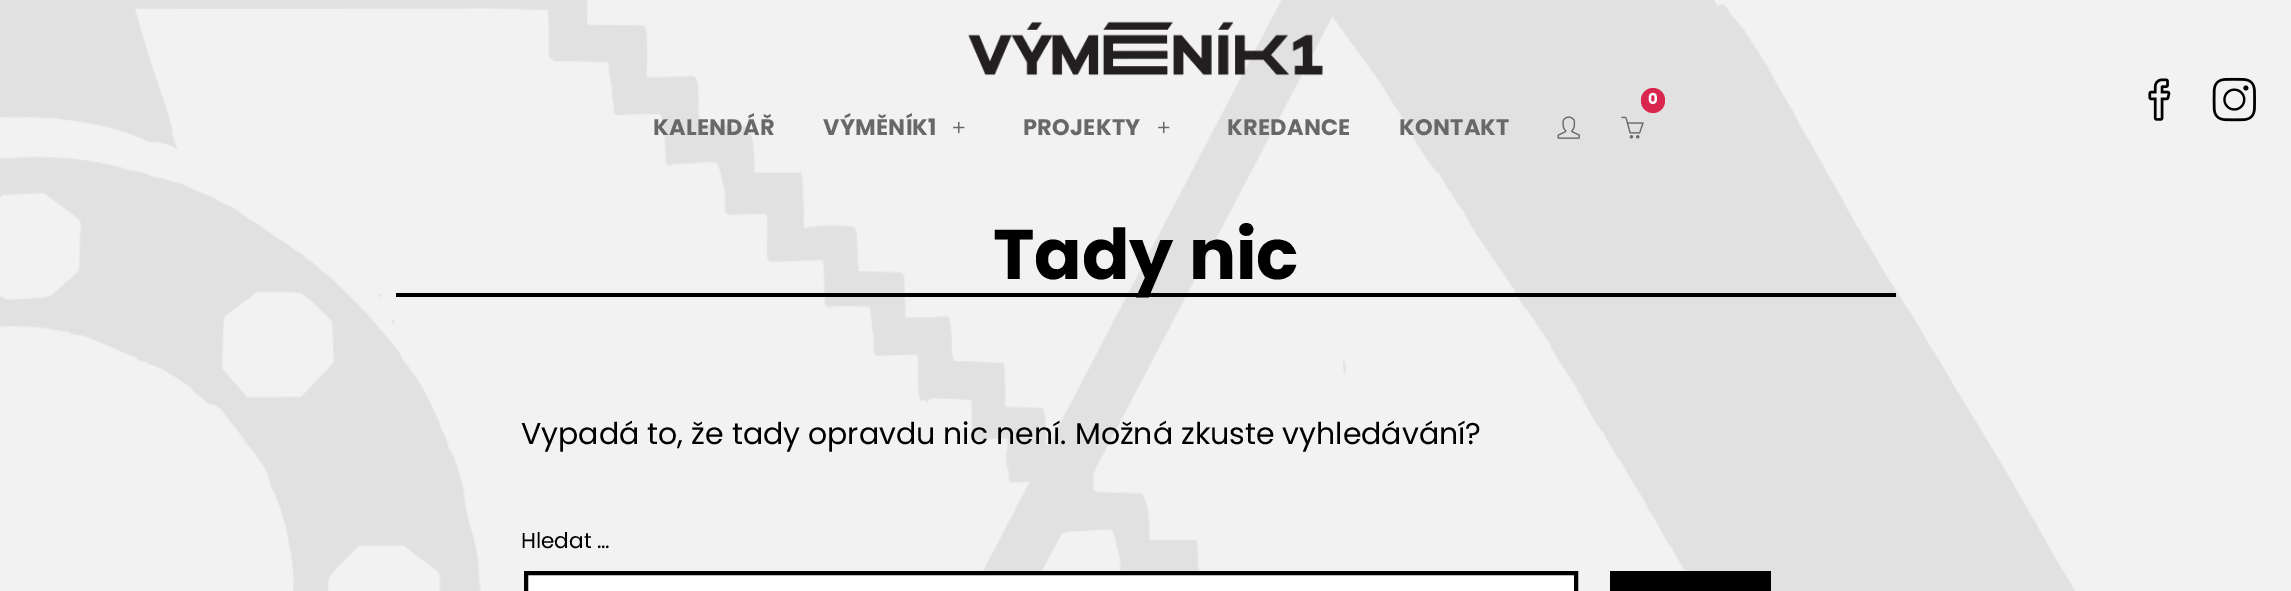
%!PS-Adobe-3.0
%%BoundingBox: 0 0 2291 591
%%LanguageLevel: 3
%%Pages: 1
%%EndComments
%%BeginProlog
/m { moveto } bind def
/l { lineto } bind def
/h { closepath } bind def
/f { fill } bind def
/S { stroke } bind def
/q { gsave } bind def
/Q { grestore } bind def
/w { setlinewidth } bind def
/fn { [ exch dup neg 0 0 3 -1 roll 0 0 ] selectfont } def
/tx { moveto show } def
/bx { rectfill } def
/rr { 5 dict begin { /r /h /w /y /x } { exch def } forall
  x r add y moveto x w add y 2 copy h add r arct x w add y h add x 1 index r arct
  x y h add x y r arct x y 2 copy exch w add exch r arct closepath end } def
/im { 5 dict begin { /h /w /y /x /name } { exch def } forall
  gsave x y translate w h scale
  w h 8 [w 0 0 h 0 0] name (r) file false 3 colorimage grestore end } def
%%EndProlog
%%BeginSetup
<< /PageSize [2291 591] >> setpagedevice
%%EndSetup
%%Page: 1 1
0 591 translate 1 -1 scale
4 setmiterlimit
1 setgray
0 0 2291 591 bx
(image0.raw) 0 0 2291 591 im
(image1.raw) 968 21 355 55 im
0.851 0.149 0.31 setrgbcolor
1641 88 24 25 12 rr f
/Poppins-Bold 15 fn
1 setgray
1648 104 m 0.25 0 (0) ashow
(image2.raw) 1621 116 23 23 im
/Poppins-Bold 22.5 fn
0.408 setgray
653 135 m 0.25 0 (KALENDÁŘ) ashow
823 135 m 0.25 0 (VÝMĚNÍK1) ashow
(image3.raw) 953 121 12 13 im
1023 135 m 0.25 0 (PROJEKTY) ashow
(image3.raw) 1158 121 12 13 im
1227 135 m 0.25 0 (KREDANCE) ashow
1399 135 m 0.25 0 (KONTAKT) ashow
(image4.raw) 1557 116 23 23 im
0 setgray
396 293 1500 4 bx
/Poppins-Bold 70 fn
(Tady nic) 993 279 tx
/Poppins-Regular 30 fn
(Vypadá to, že tady opravdu nic není. Možná zkuste vyhledávání?) 521 444 tx
/Poppins-Regular 21.5 fn
(Hledat …) 521 548 tx
1 setgray
526 573 m 1576 573 l 1576 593 l 526 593 l h q f Q
0 setgray
4 w
S
1610 571 161 20 bx
(image5.raw) 2148 78 23 43 im
(image6.raw) 2212 77 44 45 im
showpage
%%EOF
